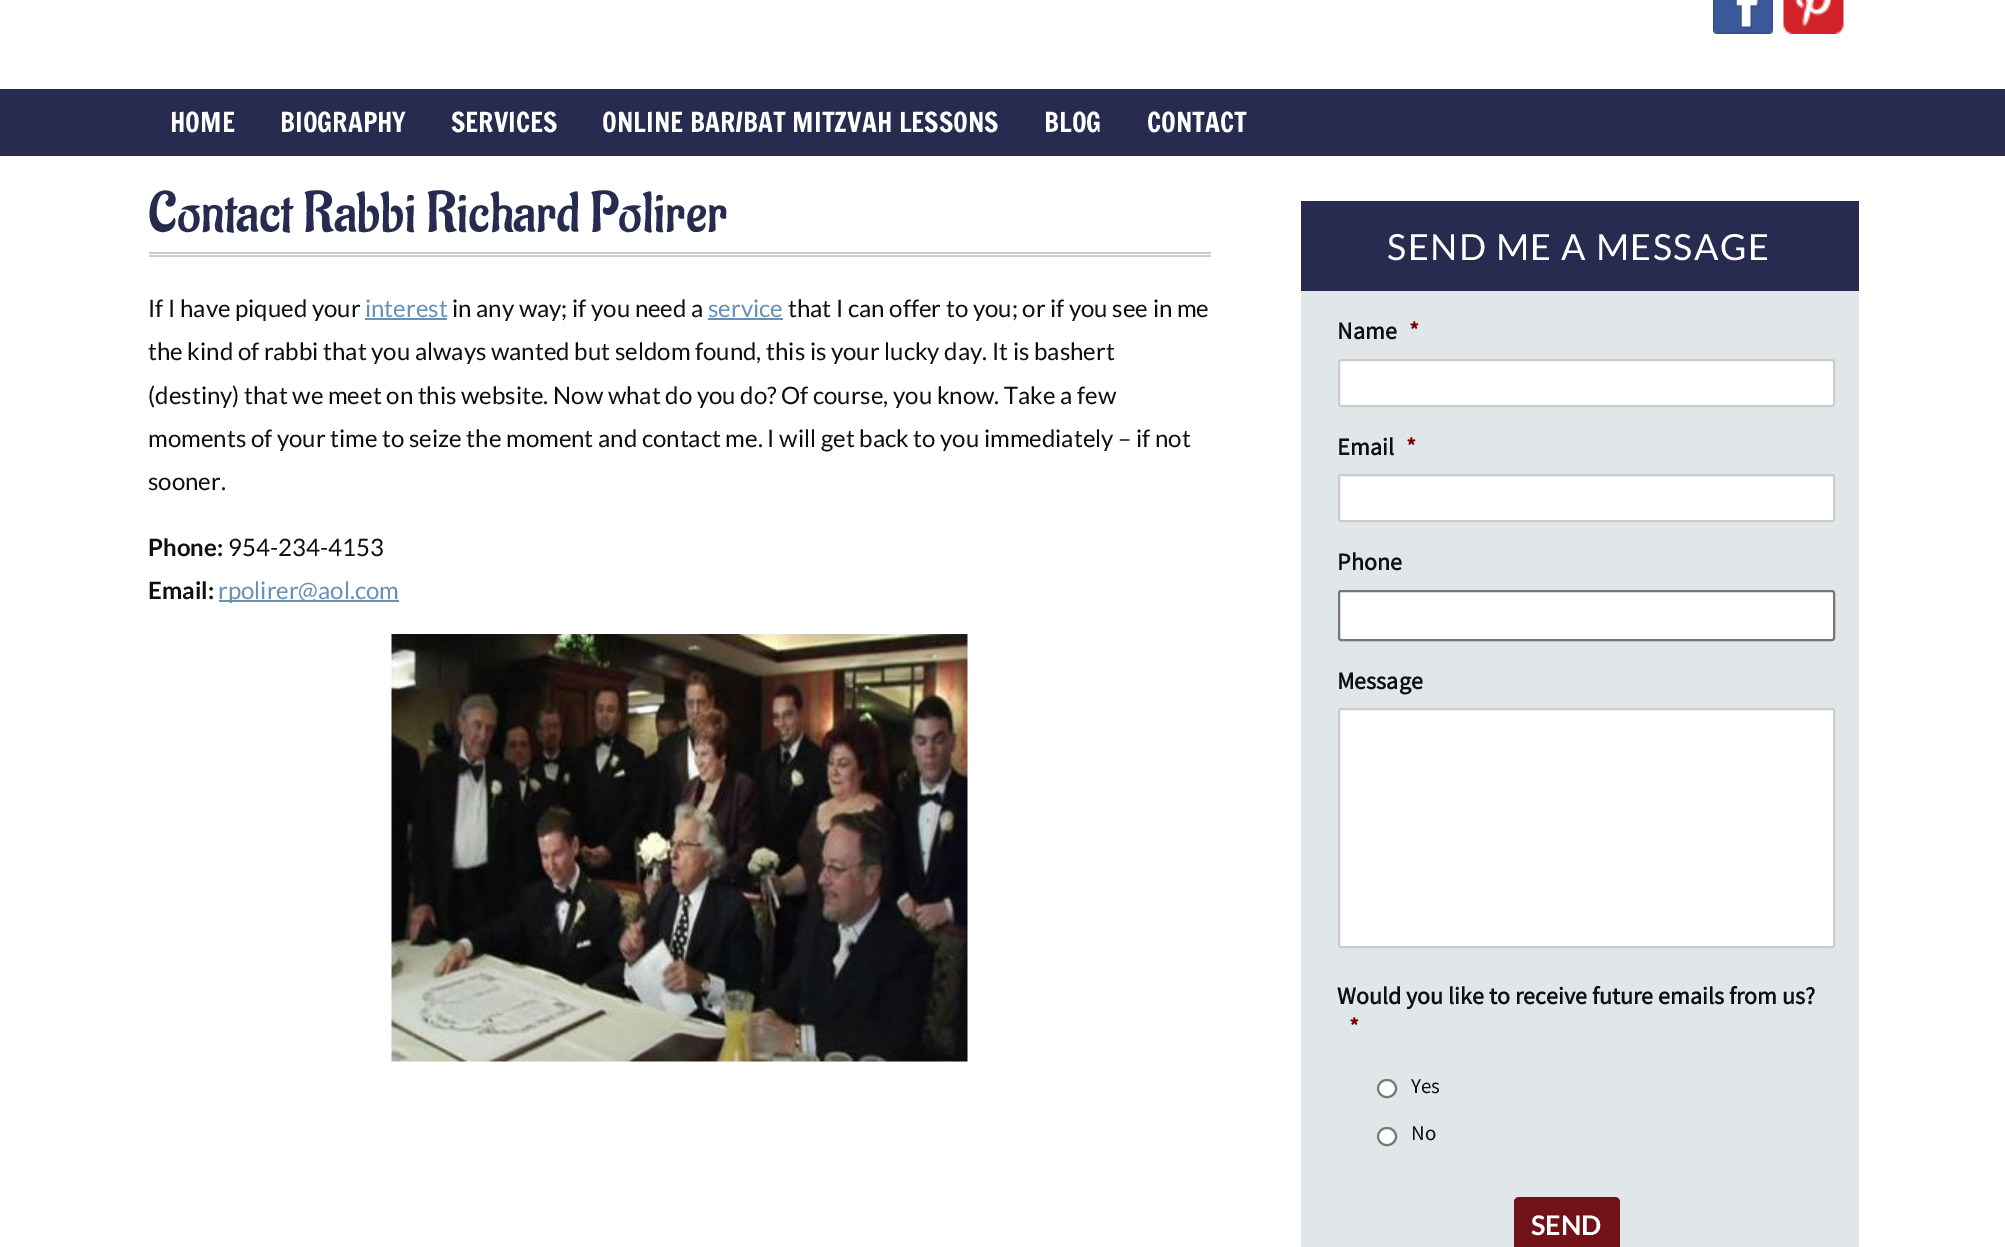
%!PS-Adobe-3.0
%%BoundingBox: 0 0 2005 1247
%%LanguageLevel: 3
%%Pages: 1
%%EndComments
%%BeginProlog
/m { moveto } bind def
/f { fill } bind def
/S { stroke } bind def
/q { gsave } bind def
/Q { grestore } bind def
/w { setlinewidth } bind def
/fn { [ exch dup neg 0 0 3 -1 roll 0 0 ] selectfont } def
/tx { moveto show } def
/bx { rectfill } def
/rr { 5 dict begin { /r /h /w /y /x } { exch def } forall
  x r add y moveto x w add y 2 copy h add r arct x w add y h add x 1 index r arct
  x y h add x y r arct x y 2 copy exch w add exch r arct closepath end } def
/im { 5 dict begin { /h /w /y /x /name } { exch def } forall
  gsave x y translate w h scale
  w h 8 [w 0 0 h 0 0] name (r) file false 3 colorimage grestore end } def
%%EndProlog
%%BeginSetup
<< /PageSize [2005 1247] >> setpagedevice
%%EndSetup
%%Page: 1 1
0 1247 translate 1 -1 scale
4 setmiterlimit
1 setgray
0 0 2005 1247 bx
(image0.raw) 1713 0 60 34 im
(image1.raw) 1783 0 61 34 im
0.149 0.169 0.31 setrgbcolor
0 89 2005 67 bx
/FrancoisOne-Regular 27 fn
1 setgray
(HOME) 170 132 tx
(BIOGRAPHY) 280 132 tx
(SERVICES) 451 132 tx
(ONLINE BAR/BAT MITZVAH LESSONS) 602 132 tx
(BLOG) 1044 132 tx
(CONTACT) 1147 132 tx
0.8 setgray
149 252 1062 2 bx
149 255 1062 2 bx
/Aladin-Regular 57 fn
0.149 0.169 0.31 setrgbcolor
(Contact Rabbi Richard Polirer) 148 231 tx
/Lato-Regular 24 fn
0.043 0.063 0.071 setrgbcolor
(If I have piqued your) 148 317 tx
0.404 0.569 0.71 setrgbcolor
(interest) 365 317 tx
365 318 82 2 bx
0.043 0.063 0.071 setrgbcolor
(in any way; if you need a) 452 317 tx
0.404 0.569 0.71 setrgbcolor
(service) 708 317 tx
708 318 75 2 bx
0.043 0.063 0.071 setrgbcolor
(that I can offer to you; or if you see in me) 788 317 tx
(the kind of rabbi that you always wanted but seldom found, this is your lucky day. It is bashert) 148 360 tx
(\(destiny\) that we meet on this website. Now what do you do? Of course, you know. Take a few) 148 404 tx
(moments of your time to seize the moment and contact me. I will get back to you immediately – if not) 148 447 tx
(sooner.) 148 490 tx
/Lato-Bold 24 fn
(Phone:) 148 556 tx
/Lato-Regular 24 fn
(954-234-4153) 228 556 tx
/Lato-Bold 24 fn
(Email:) 148 599 tx
0.404 0.569 0.71 setrgbcolor
219 600 180 2 bx
/Lato-Regular 24 fn
(rpolirer@aol.com) 218 599 tx
(image2.raw) 391 634 577 428 im
0.882 0.906 0.914 setrgbcolor
1301 291 558 956 bx
0.149 0.169 0.31 setrgbcolor
1301 201 558 90 bx
/Lato-Regular 36 fn
1 setgray
1387 260 m 1.5 0 (SEND ME A MESSAGE) ashow
/SourceSansPro-Bold 24 fn
0.043 0.063 0.071 setrgbcolor
(Name) 1337 339 tx
0.475 0 0 setrgbcolor
(*) 1409 339 tx
1 setgray
1339 360 495 46 2 rr q f Q
0.8 setgray
2 w
S
0.043 0.063 0.071 setrgbcolor
(Email) 1337 455 tx
0.475 0 0 setrgbcolor
(*) 1406 455 tx
1 setgray
1339 475 495 46 2 rr q f Q
0.8 setgray
S
0.043 0.063 0.071 setrgbcolor
(Phone) 1337 570 tx
1 setgray
1339 591 495 49 2 rr q f Q
0.463 setgray
S
0.043 0.063 0.071 setrgbcolor
(Message) 1337 689 tx
1 setgray
1339 709 495 238 2 rr q f Q
0.8 setgray
S
0.043 0.063 0.071 setrgbcolor
(Would you like to receive future emails from us?) 1337 1004 tx
0.475 0 0 setrgbcolor
(*) 1349 1035 tx
1 setgray
1378 1080 18 17 8.5 rr q f Q
0.463 setgray
S
/SourceSansPro-Regular 21 fn
0.043 0.063 0.071 setrgbcolor
(Yes) 1411 1093 tx
1 setgray
1378 1128 18 17 8.5 rr q f Q
0.463 setgray
S
0.043 0.063 0.071 setrgbcolor
(No) 1411 1140 tx
0.439 0.071 0.09 setrgbcolor
1514 1197 106 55 5 rr f
/Lato-Bold 27 fn
1 setgray
(SEND) 1531 1235 tx
showpage
%%EOF
